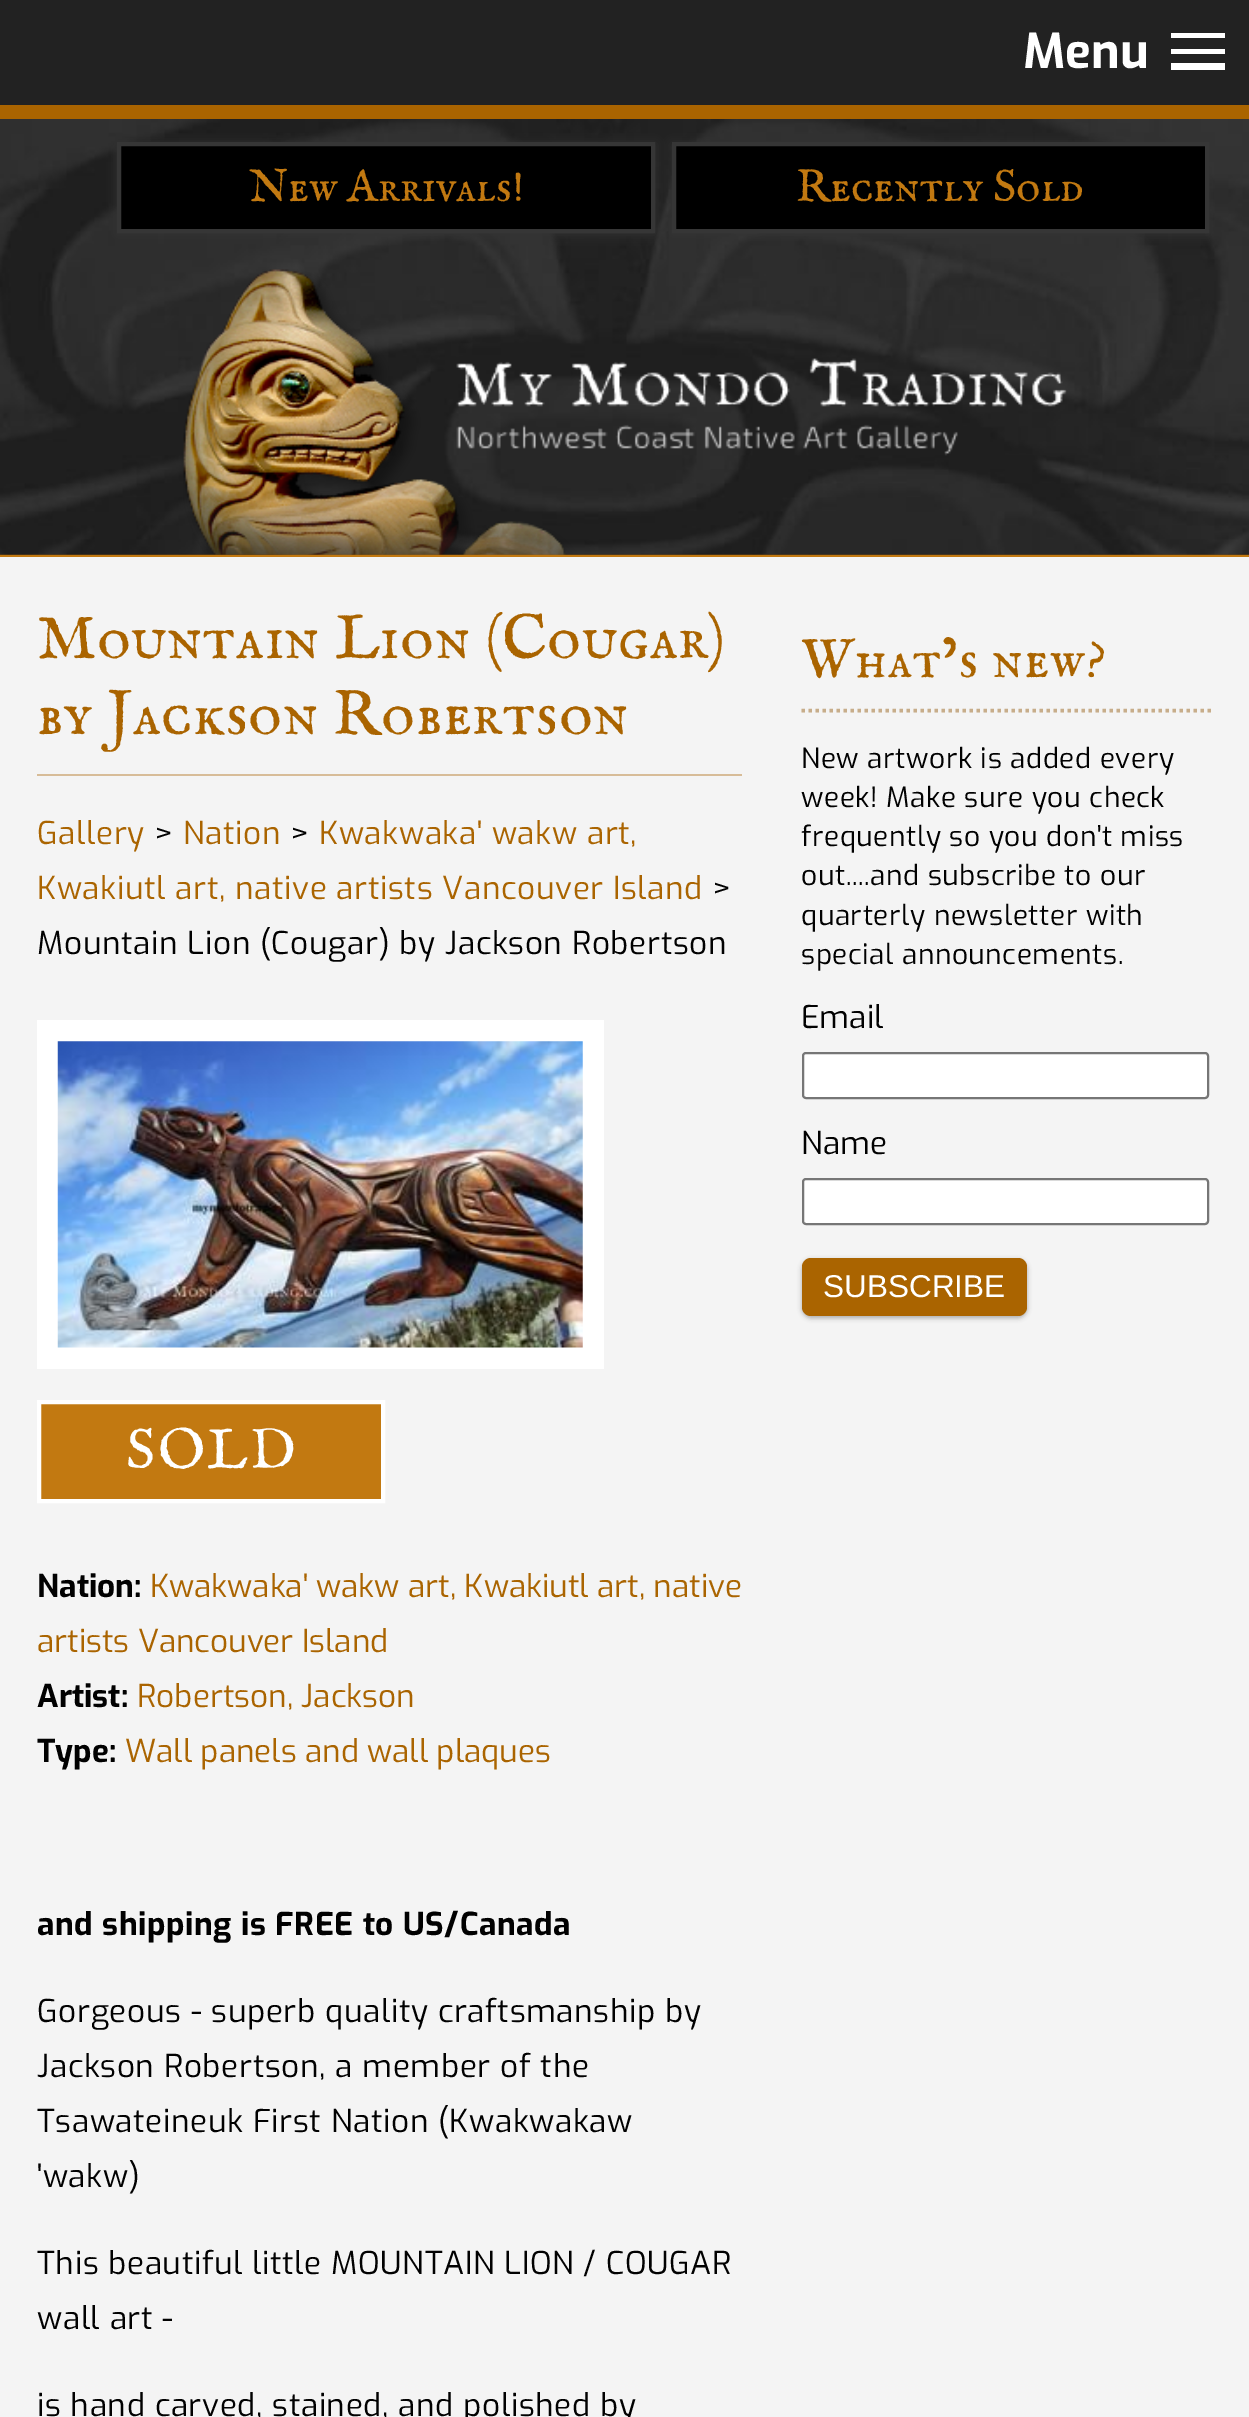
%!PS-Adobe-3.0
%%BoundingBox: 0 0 1249 2417
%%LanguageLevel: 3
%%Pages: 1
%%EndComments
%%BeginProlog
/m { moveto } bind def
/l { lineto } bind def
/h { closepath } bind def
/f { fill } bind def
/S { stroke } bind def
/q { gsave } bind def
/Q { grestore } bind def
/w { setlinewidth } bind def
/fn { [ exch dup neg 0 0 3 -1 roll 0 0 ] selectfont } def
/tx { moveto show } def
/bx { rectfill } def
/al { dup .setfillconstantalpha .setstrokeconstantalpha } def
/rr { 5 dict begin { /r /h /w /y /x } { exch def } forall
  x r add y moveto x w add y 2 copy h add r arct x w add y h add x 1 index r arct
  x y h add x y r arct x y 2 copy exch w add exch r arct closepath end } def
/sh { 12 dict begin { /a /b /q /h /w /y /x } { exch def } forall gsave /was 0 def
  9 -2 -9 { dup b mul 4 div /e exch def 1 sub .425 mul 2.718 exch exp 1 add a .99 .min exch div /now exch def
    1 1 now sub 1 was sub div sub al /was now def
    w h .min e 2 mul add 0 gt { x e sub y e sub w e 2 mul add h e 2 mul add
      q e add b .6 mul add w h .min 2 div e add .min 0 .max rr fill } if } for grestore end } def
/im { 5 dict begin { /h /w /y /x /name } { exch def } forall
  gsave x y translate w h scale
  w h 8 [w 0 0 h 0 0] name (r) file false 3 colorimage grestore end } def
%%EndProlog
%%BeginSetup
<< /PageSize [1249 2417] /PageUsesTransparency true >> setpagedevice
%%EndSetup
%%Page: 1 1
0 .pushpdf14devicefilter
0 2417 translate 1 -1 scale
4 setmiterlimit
1 setgray
0 0 1249 2417 bx
0.133 setgray
0 0 1249 105 bx
/Exo-Bold 48 fn
1 setgray
(Menu) 1023 68 tx
1171 33 54 5 bx
1171 49 54 5 bx
1171 63 54 7 bx
(image0.raw) 0 119 1249 436 im
0.667 0.392 0 setrgbcolor
0 105 1249 14 bx
0.2 setgray
117 144 538 91 0 5 1 sh
0 setgray
119 144 m 653 144 l 653 231 l 119 231 l h q f Q
0.212 setgray
4 w
S
/IMFELLEnglishSC-Regular 45.5 fn
0.761 0.475 0.067 setrgbcolor
(New Arrivals!) 249 201 tx
0.2 setgray
672 144 537 91 0 5 1 sh
0 setgray
674 144 m 1207 144 l 1207 231 l 674 231 l h q f Q
0.212 setgray
S
0.761 0.475 0.067 setrgbcolor
(Recently Sold) 796 201 tx
(image1.raw) 183 269 884 286 im
(image2.raw) 0 554 1249 1 im
0.957 setgray
0 557 1249 1860 bx
0.761 0.475 0.067 setrgbcolor
0 555 1249 2 bx
0.843 0.737 0.596 setrgbcolor
37 774 705 2 bx
/IMFELLEnglishSC-Regular 63 fn
0.667 0.392 0 setrgbcolor
37 658 m 0.65 0 (Mountain Lion \(Cougar\)) ashow
37 734 m 0.65 0 (by Jackson Robertson) ashow
/Exo-Regular 31.5 fn
37 844 m 0.65 0 (Gallery) ashow
0.004 setgray
154 844 m 0.65 0 (>) ashow
0.667 0.392 0 setrgbcolor
183 844 m 0.65 0 (Nation) ashow
0.004 setgray
290 844 m 0.65 0 (>) ashow
0.667 0.392 0 setrgbcolor
319 844 m 0.65 0 (Kwakwaka' wakw art,) ashow
37 899 m 0.65 0 (Kwakiutl art, native artists Vancouver Island) ashow
0.004 setgray
712 899 m 0.65 0 (>) ashow
37 954 m 0.65 0 (Mountain Lion \(Cougar\) by Jackson Robertson) ashow
1 setgray
37 1020 567 349 bx
(image3.raw) 57 1041 526 307 im
0.761 0.475 0.067 setrgbcolor
39 1402 m 383 1402 l 383 1501 l 39 1501 l h q f Q
1 setgray
S
/IMFELLEnglishSC-Regular 57 fn
126 1468 m 2.5 0 (SOLD) ashow
/Exo-Bold 31.5 fn
0.004 setgray
(Nation:) 37 1597 tx
/Exo-Regular 31.5 fn
0.667 0.392 0 setrgbcolor
(Kwakwaka' wakw art, Kwakiutl art, native) 150 1597 tx
(artists Vancouver Island) 37 1652 tx
/Exo-Bold 31.5 fn
0.004 setgray
(Artist:) 37 1707 tx
/Exo-Regular 31.5 fn
0.667 0.392 0 setrgbcolor
(Robertson, Jackson) 137 1707 tx
/Exo-Bold 31.5 fn
0.004 setgray
(Type:) 37 1762 tx
/Exo-Regular 31.5 fn
0.667 0.392 0 setrgbcolor
(Wall panels and wall plaques) 125 1762 tx
/Exo-Bold 31.5 fn
0.004 setgray
37 1935 m 0.65 0 (and shipping is FREE to US/Canada) ashow
/Exo-Regular 31.5 fn
37 2022 m 0.65 0 (Gorgeous - superb quality craftsmanship by) ashow
37 2077 m 0.65 0 (Jackson Robertson, a member of the) ashow
37 2132 m 0.65 0 (Tsawateineuk First Nation \(Kwakwakaw) ashow
37 2187 m 0.65 0 ('wakw\)) ashow
37 2274 m 0.65 0 (This beautiful little MOUNTAIN LION / COUGAR) ashow
37 2329 m 0.65 0 (wall art -) ashow
37 2416 m 0.65 0 (is hand carved, stained, and polished by) ashow
0.78 0.678 0.541 setrgbcolor
3.5 w
[3.5 3.5] 0 setdash
801.5 710.5 m 1213 710.5 l S
/IMFELLEnglishSC-Regular 55 fn
0.667 0.392 0 setrgbcolor
801 677 m 1.1 0 (What’s new?) ashow
/Exo-Regular 28 fn
0.004 setgray
801 768 m 0.55 0 (New artwork is added every) ashow
801 807 m 0.55 0 (week! Make sure you check) ashow
801 846 m 0.55 0 (frequently so you don't miss) ashow
801 885 m 0.55 0 (out....and subscribe to our) ashow
801 925 m 0.55 0 (quarterly newsletter with) ashow
801 964 m 0.55 0 (special announcements.) ashow
/Exo-Regular 31.5 fn
(Email) 801 1028 tx
1 setgray
803 1053 405 45 3 rr q f Q
0.463 setgray
2 w
[] 0 setdash
S
0.004 setgray
(Name) 801 1154 tx
1 setgray
803 1179 405 45 3 rr q f Q
0.463 setgray
S
0 setgray
802 1260 225 58 9 2.5 0.3 sh
0.667 0.392 0 setrgbcolor
802 1258 225 58 9 rr f
/LiberationSans-Regular 31.5 fn
1 setgray
(SUBSCRIBE) 823 1297 tx
.poppdf14devicefilter showpage
%%EOF
